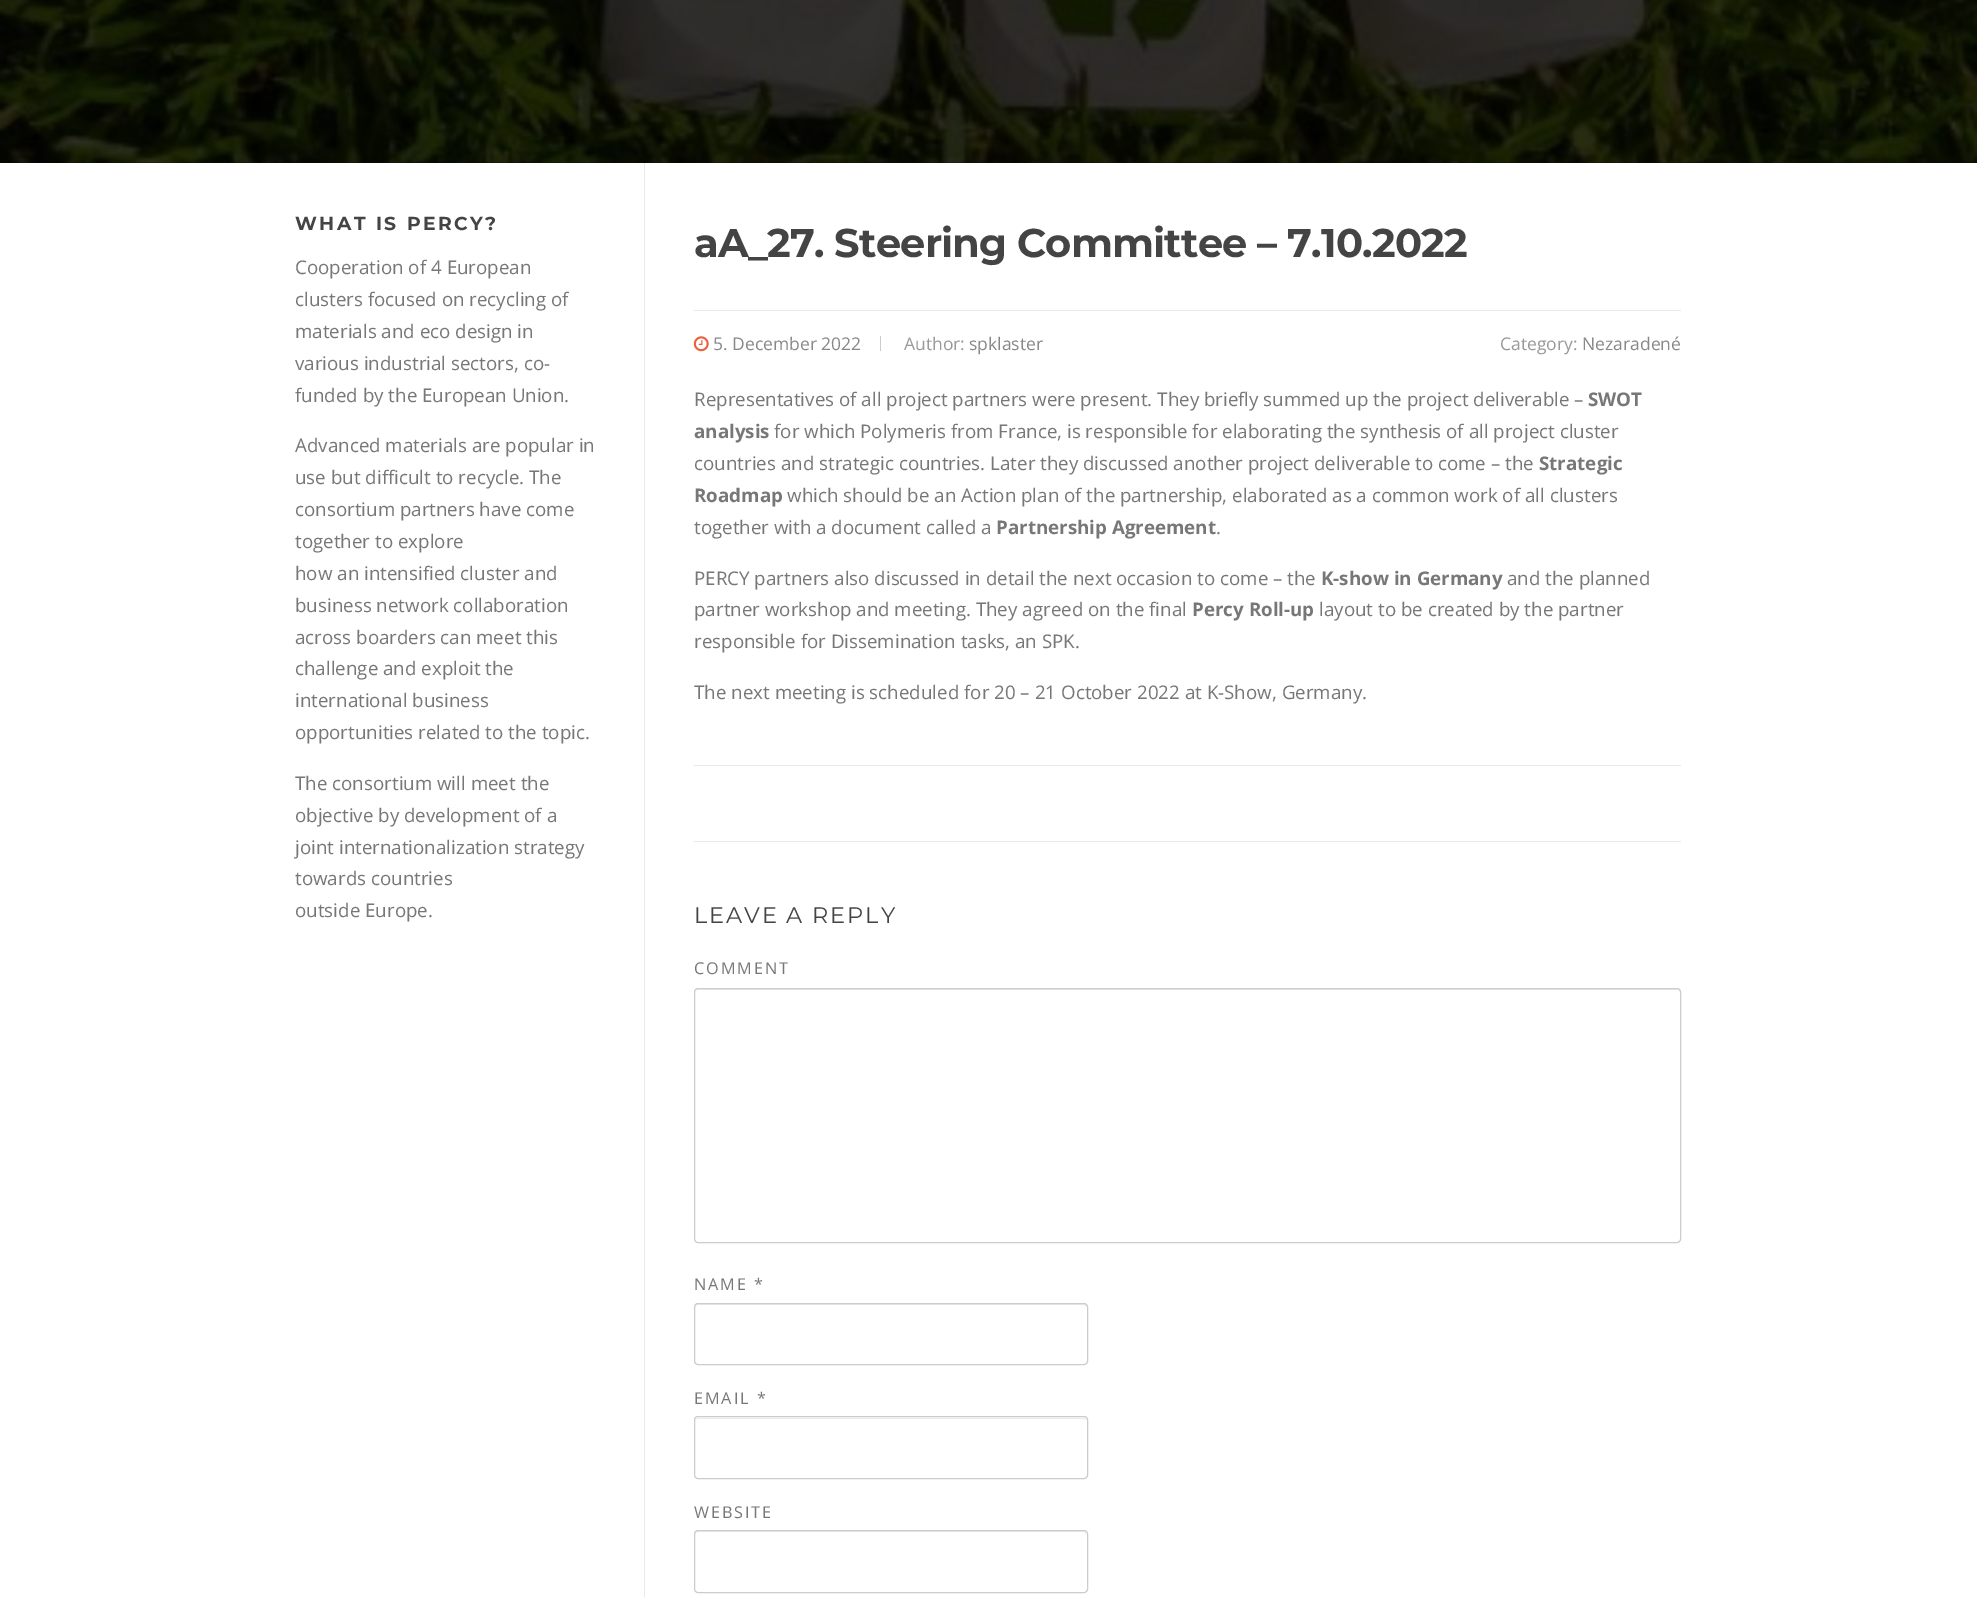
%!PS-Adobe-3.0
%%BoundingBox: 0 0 1977 1597
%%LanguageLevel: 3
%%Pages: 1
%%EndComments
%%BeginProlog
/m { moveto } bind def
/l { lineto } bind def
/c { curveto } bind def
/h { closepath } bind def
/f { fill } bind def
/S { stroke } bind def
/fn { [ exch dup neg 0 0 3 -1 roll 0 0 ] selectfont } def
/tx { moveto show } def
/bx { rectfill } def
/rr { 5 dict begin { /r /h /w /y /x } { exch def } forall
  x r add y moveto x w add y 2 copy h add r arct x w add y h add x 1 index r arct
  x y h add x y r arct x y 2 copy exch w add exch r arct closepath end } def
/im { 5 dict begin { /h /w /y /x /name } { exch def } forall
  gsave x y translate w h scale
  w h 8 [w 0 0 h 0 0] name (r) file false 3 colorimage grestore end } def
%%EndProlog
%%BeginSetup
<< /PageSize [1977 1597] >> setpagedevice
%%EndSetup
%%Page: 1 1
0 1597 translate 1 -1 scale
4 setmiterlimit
1 setgray
0 0 1977 1597 bx
(image0.raw) 0 0 1977 163 im
/Montserrat-Bold 18.75 fn
0.267 setgray
295 230 m 2.5 0 (WHAT IS PERCY?) ashow
/OpenSans-Regular 18.75 fn
0.467 setgray
(Cooperation of 4 European) 295 274 tx
(clusters focused on recycling of) 295 306 tx
(materials and eco design in) 295 338 tx
(various industrial sectors, co-) 295 370 tx
(funded by the European Union.) 295 402 tx
(Advanced materials are popular in) 295 452 tx
(use but difficult to recycle. The) 295 484 tx
(consortium partners have come) 295 516 tx
(together to explore) 295 548 tx
(how an intensified cluster and) 295 580 tx
(business network collaboration) 295 612 tx
(across boarders can meet this) 295 644 tx
(challenge and exploit the) 295 675 tx
(international business) 295 707 tx
(opportunities related to the topic.) 295 739 tx
(The consortium will meet the) 295 790 tx
(objective by development of a) 295 822 tx
(joint internationalization strategy) 295 854 tx
(towards countries) 295 885 tx
(outside Europe.) 295 917 tx
0.914 setgray
644 163 1 1434 bx
/Montserrat-Bold 40 fn
0.267 setgray
694 257 m -0.75 0 (aA_27. Steering Committee – 7.10.2022) ashow
0.914 setgray
694 310 987 1 bx
(image1.raw) 693 336 16 16 im
/OpenSans-Regular 17.5 fn
0.533 setgray
(5. December 2022) 713 350 tx
0.8 setgray
880 336 1 15 bx
0.6 setgray
(Author:) 904 350 tx
0.533 setgray
(spklaster) 969 350 tx
0.6 setgray
(Category:) 1500 350 tx
0.533 setgray
(Nezaradené) 1582 350 tx
/OpenSans-Regular 18.75 fn
0.467 setgray
(Representatives of all project partners were present. They briefly summed up the project deliverable –) 694 406 tx
/OpenSans-Bold 18.75 fn
(SWOT) 1588 406 tx
(analysis) 694 438 tx
/OpenSans-Regular 18.75 fn
(for which Polymeris from France, is responsible for elaborating the synthesis of all project cluster) 774 438 tx
(countries and strategic countries. Later they discussed another project deliverable to come – the) 694 470 tx
/OpenSans-Bold 18.75 fn
(Strategic) 1539 470 tx
(Roadmap) 694 502 tx
/OpenSans-Regular 18.75 fn
(which should be an Action plan of the partnership, elaborated as a common work of all clusters) 787 502 tx
(together with a document called a) 694 534 tx
/OpenSans-Bold 18.75 fn
(Partnership Agreement) 996 534 tx
/OpenSans-Regular 18.75 fn
(.) 1216 534 tx
(PERCY partners also discussed in detail the next occasion to come – the) 694 585 tx
/OpenSans-Bold 18.75 fn
(K-show in Germany) 1321 585 tx
/OpenSans-Regular 18.75 fn
(and the planned) 1507 585 tx
(partner workshop and meeting. They agreed on the final) 694 616 tx
/OpenSans-Bold 18.75 fn
(Percy Roll-up) 1192 616 tx
/OpenSans-Regular 18.75 fn
(layout to be created by the partner) 1319 616 tx
(responsible for Dissemination tasks, an SPK.) 694 648 tx
(The next meeting is scheduled for 20 – 21 October 2022 at K-Show, Germany.) 694 699 tx
0.914 setgray
694 765 987 1 bx
694 841 987 1 bx
/Montserrat-Regular 22.5 fn
0.267 setgray
694 923 m 1.9 0 (LEAVE A REPLY) ashow
/OpenSans-Regular 16.25 fn
0.467 setgray
694 974 m 1.9 0 (COMMENT) ashow
0.922 setgray
698 990 m 1678 990 l 1679 990 1680 991 1680 992 c 1680 990 1679 989 1678 989 c 698 989 l 696 989 695 990 695 992 c 695 991 696 990 698 990 c h f
0.8 setgray
694.5 988.5 986 254 3.5 rr S
0.467 setgray
694 1290 m 1.9 0 (NAME *) ashow
0.922 setgray
698 1305 m 1084 1305 l 1085 1305 1086 1306 1086 1308 c 1086 1305 l 1084 1304 l 698 1304 l 695 1304 695 1306 695 1308 c 695 1306 696 1305 698 1305 c h f
0.8 setgray
694.5 1303.5 393 61 3.5 rr S
0.467 setgray
694 1404 m 1.9 0 (EMAIL *) ashow
0.922 setgray
698 1419 m 1084 1419 l 1085 1419 1086 1420 1086 1421 c 1086 1419 1085 1418 1084 1418 c 698 1418 l 696 1419 l 695 1421 l 695 1420 696 1419 698 1419 c h f
0.8 setgray
694.5 1416.5 393 62 3.5 rr S
0.467 setgray
694 1518 m 1.9 0 (WEBSITE) ashow
0.922 setgray
698 1532 m 1084 1532 l 1085 1532 1086 1534 1086 1535 c 1086 1532 l 1084 1531 l 698 1531 l 695 1531 695 1533 695 1535 c 695 1534 696 1532 698 1532 c h f
0.8 setgray
694.5 1530.5 393 62 3.5 rr S
showpage
%%EOF
